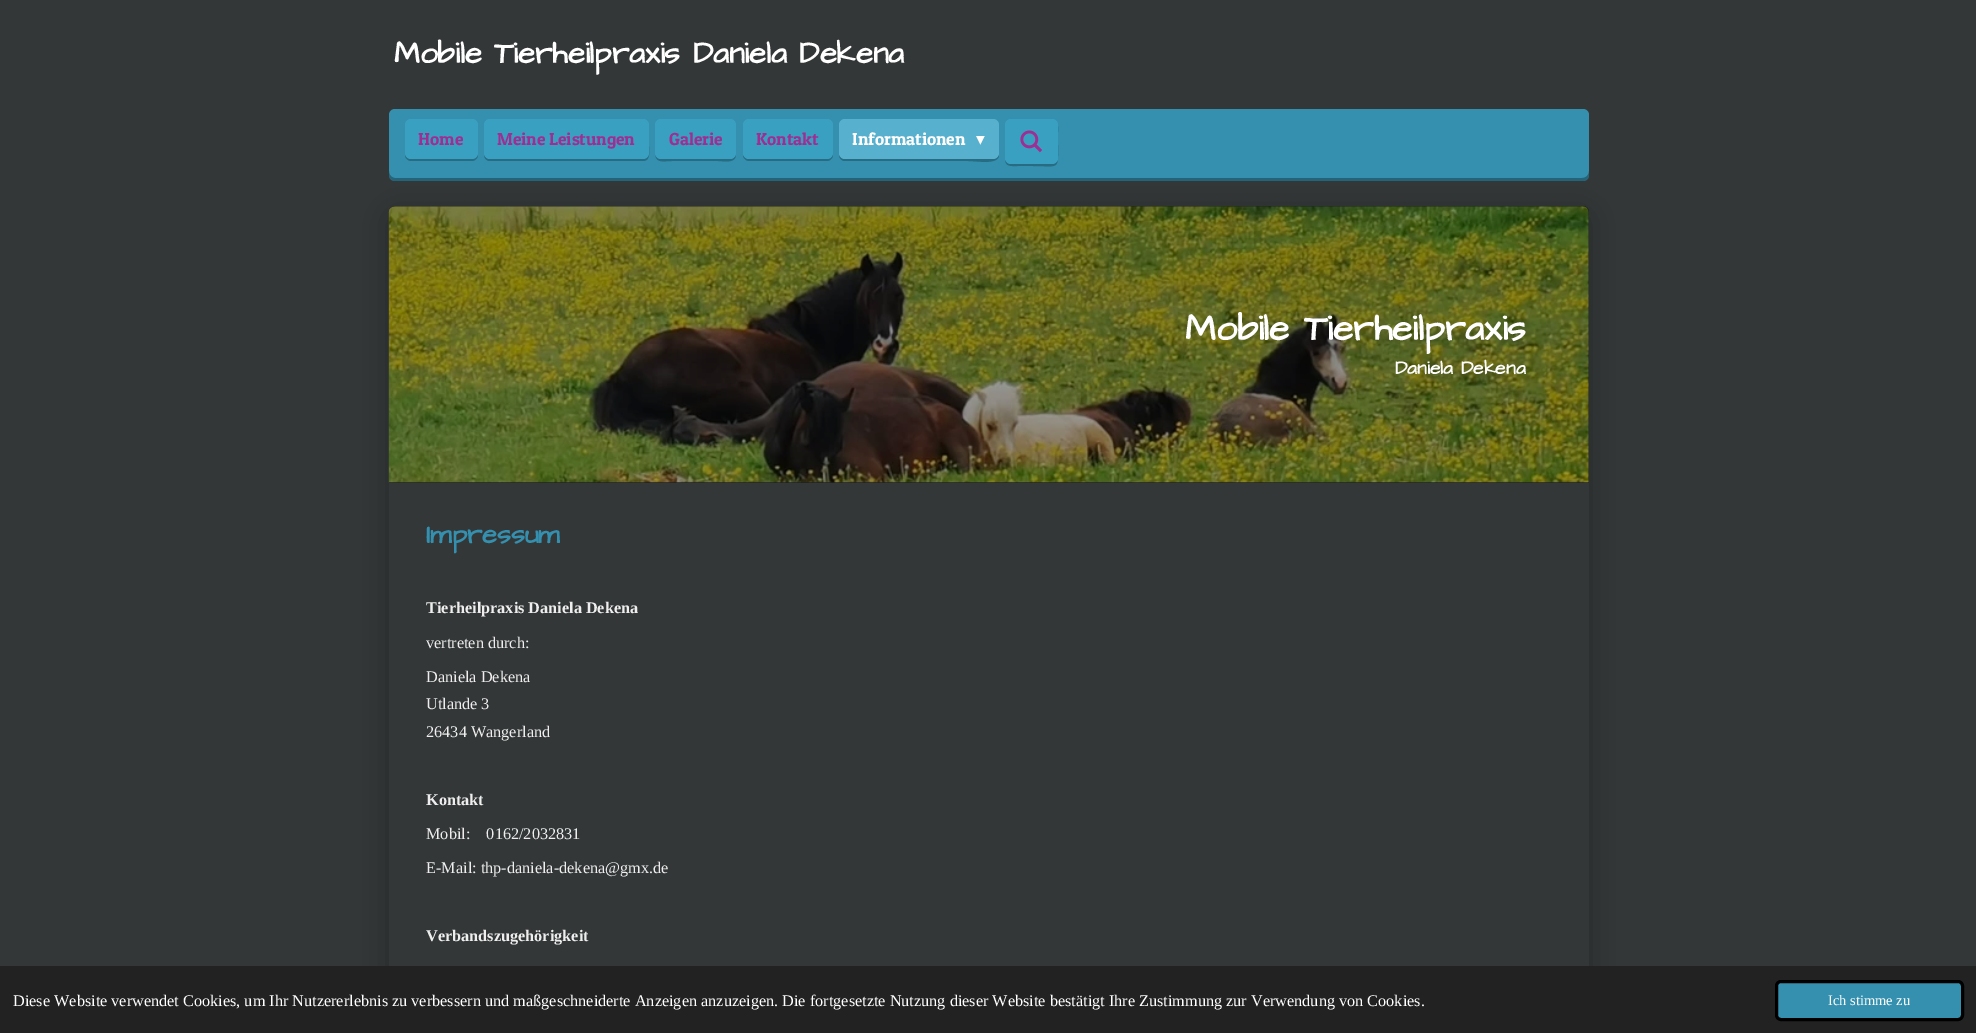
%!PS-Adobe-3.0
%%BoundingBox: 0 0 1976 1033
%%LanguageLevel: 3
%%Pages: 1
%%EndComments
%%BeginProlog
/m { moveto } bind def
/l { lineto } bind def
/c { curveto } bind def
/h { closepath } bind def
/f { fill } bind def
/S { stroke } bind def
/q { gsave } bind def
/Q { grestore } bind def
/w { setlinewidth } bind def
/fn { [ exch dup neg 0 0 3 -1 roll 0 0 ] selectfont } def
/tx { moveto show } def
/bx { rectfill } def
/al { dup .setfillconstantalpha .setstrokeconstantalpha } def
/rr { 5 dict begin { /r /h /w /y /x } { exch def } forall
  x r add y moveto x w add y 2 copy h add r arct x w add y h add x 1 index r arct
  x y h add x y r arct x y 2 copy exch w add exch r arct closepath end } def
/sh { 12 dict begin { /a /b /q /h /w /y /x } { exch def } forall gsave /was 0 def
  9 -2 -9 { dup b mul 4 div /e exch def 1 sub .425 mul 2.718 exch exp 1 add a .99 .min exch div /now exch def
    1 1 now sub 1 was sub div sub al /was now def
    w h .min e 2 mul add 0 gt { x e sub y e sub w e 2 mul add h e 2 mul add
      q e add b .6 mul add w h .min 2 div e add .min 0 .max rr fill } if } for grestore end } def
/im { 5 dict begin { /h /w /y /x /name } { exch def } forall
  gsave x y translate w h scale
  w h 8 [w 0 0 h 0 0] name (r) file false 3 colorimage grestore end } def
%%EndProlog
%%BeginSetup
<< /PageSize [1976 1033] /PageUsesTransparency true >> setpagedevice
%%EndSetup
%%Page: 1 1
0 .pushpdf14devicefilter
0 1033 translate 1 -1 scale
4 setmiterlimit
0.204 0.216 0.22 setrgbcolor
0 0 1976 1033 bx
/ArchitectsDaughter-Bold 31.25 fn
1 setgray
(Mobile Tierheilpraxis Daniela Dekena) 394 63 tx
0.204 0.565 0.682 setrgbcolor
389 109 1200 72 6 rr f
0.3 al
0 setgray
389 171 m 389 175 l 389 178 392 181 395 181 c 1583 181 l 1586 181 1589 178 1589 175 c 1589 171 l 1589 175 1586 178 1582 178 c 395 178 l 392 178 389 175 389 171 c h f
1 al
0.153 0.424 0.514 setrgbcolor
405 152 m 405 155 l 405 158 408 161 411 161 c 472 161 l 475 161 478 158 478 155 c 478 127 l 477 125 l 478 152 l 478 156 475 159 471 159 c 411 159 l 408 159 405 156 405 152 c h f
0.227 0.627 0.761 setrgbcolor
405 119 73 40 6 rr f
/PatuaOne-Regular 17.5 fn
0.616 0.184 0.58 setrgbcolor
(Home) 418 145 tx
0.153 0.424 0.514 setrgbcolor
484 154 m 484 158 486 161 490 161 c 643 161 l 651 161 649 151 649 146 c 649 125 l 649 152 l 649 156 646 159 642 159 c 490 159 l 487 159 485 157 484 154 c h f
0.227 0.627 0.761 setrgbcolor
484 119 165 40 6 rr f
0.616 0.184 0.58 setrgbcolor
(Meine Leistungen) 497 145 tx
0.153 0.424 0.514 setrgbcolor
655 152 m 655 164 663 161 672 161 c 718 161 l 724 161 736 164 736 154 c 735 157 733 159 730 159 c 661 159 l 658 159 655 156 655 152 c h f
0.227 0.627 0.761 setrgbcolor
655 119 81 40 6 rr f
0.616 0.184 0.58 setrgbcolor
(Galerie) 669 145 tx
0.153 0.424 0.514 setrgbcolor
743 155 m 743 158 746 161 749 161 c 827 161 l 830 161 833 158 833 155 c 833 127 l 832 125 l 832 152 l 832 156 830 159 826 159 c 749 159 l 746 159 744 157 743 155 c h f
0.227 0.627 0.761 setrgbcolor
743 119 90 40 6 rr f
0.616 0.184 0.58 setrgbcolor
(Kontakt) 756 145 tx
0.153 0.424 0.514 setrgbcolor
839 154 m 839 158 841 161 845 161 c 968 161 l 977 161 997 165 999 156 c 999 125 l 999 152 l 999 156 996 159 992 159 c 845 159 l 842 159 840 157 839 154 c h f
0.341 0.69 0.804 setrgbcolor
839 119 160 40 6 rr f
1 setgray
(Informationen) 852 145 tx
/DejaVuSans-Regular 17.5 fn
(▾) 976 145 tx
0 setgray
389 213 1200 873 6 15.5 0.25 sh
0.153 0.424 0.51 setrgbcolor
1005 158 m 1005 167 1010 166 1018 166 c 1032 166 l 1060 166 1058 171 1058 144 c 1058 132 l 1058 130 1059 127 1057 125 c 1058 158 l 1058 161 1055 164 1051 164 c 1011 164 l 1008 164 1005 161 1005 158 c h f
0.227 0.627 0.761 setrgbcolor
1005 119 53 45 6 rr f
(image0.raw) 1020 130 22 23 im
(image1.raw) 388 206 1201 277 im
0.4 al
0 setgray
395 206 m 1583 206 l 1586.5 206 1589 208.5 1589 212 c 1589 483 l 389 483 l 389 212 l 389 208.5 391.5 206 395 206 c h f
/ArchitectsDaughter-Bold 37.25 fn
1 al
1 setgray
(Mobile Tierheilpraxis) 1185 340 tx
/ArchitectsDaughter-Bold 19.25 fn
(Daniela Dekena) 1395 374 tx
0.204 0.216 0.22 setrgbcolor
389 483 1200 483 bx
/ArchitectsDaughter-Bold 27.5 fn
0.204 0.565 0.682 setrgbcolor
(Impressum) 426 543 tx
/LiberationSerif-Bold 16.25 fn
0.933 setgray
(Tierheilpraxis Daniela Dekena) 426 613 tx
/LiberationSerif-Regular 16.25 fn
(vertreten durch:) 426 648 tx
(Daniela Dekena) 426 682 tx
(Utlande 3) 426 709 tx
(26434 Wangerland) 426 737 tx
/LiberationSerif-Bold 16.25 fn
(Kontakt) 426 805 tx
/LiberationSerif-Regular 16.25 fn
(Mobil:    0162/2032831) 426 839 tx
(E-Mail: thp-daniela-dekena@gmx.de) 426 873 tx
/LiberationSerif-Bold 16.25 fn
(Verbandszugehörigkeit) 426 941 tx
0.133 setgray
0 966 1976 67 bx
/LiberationSerif-Regular 16.25 fn
1 setgray
(Diese Website verwendet Cookies, um Ihr Nutzererlebnis zu verbessern und maßgeschneiderte Anzeigen anzuzeigen. Die fortgesetzte Nutzung dieser Website bestätigt Ihre Zustimmung zur Verwendung von Cookies.) 13 1006 tx
0.204 0.565 0.682 setrgbcolor
1776.5 981.5 186 38 4.5 rr q f Q
0 setgray
3 w
S
/LiberationSerif-Regular 14.5 fn
1 setgray
(Ich stimme zu) 1828 1005 tx
.poppdf14devicefilter showpage
%%EOF
